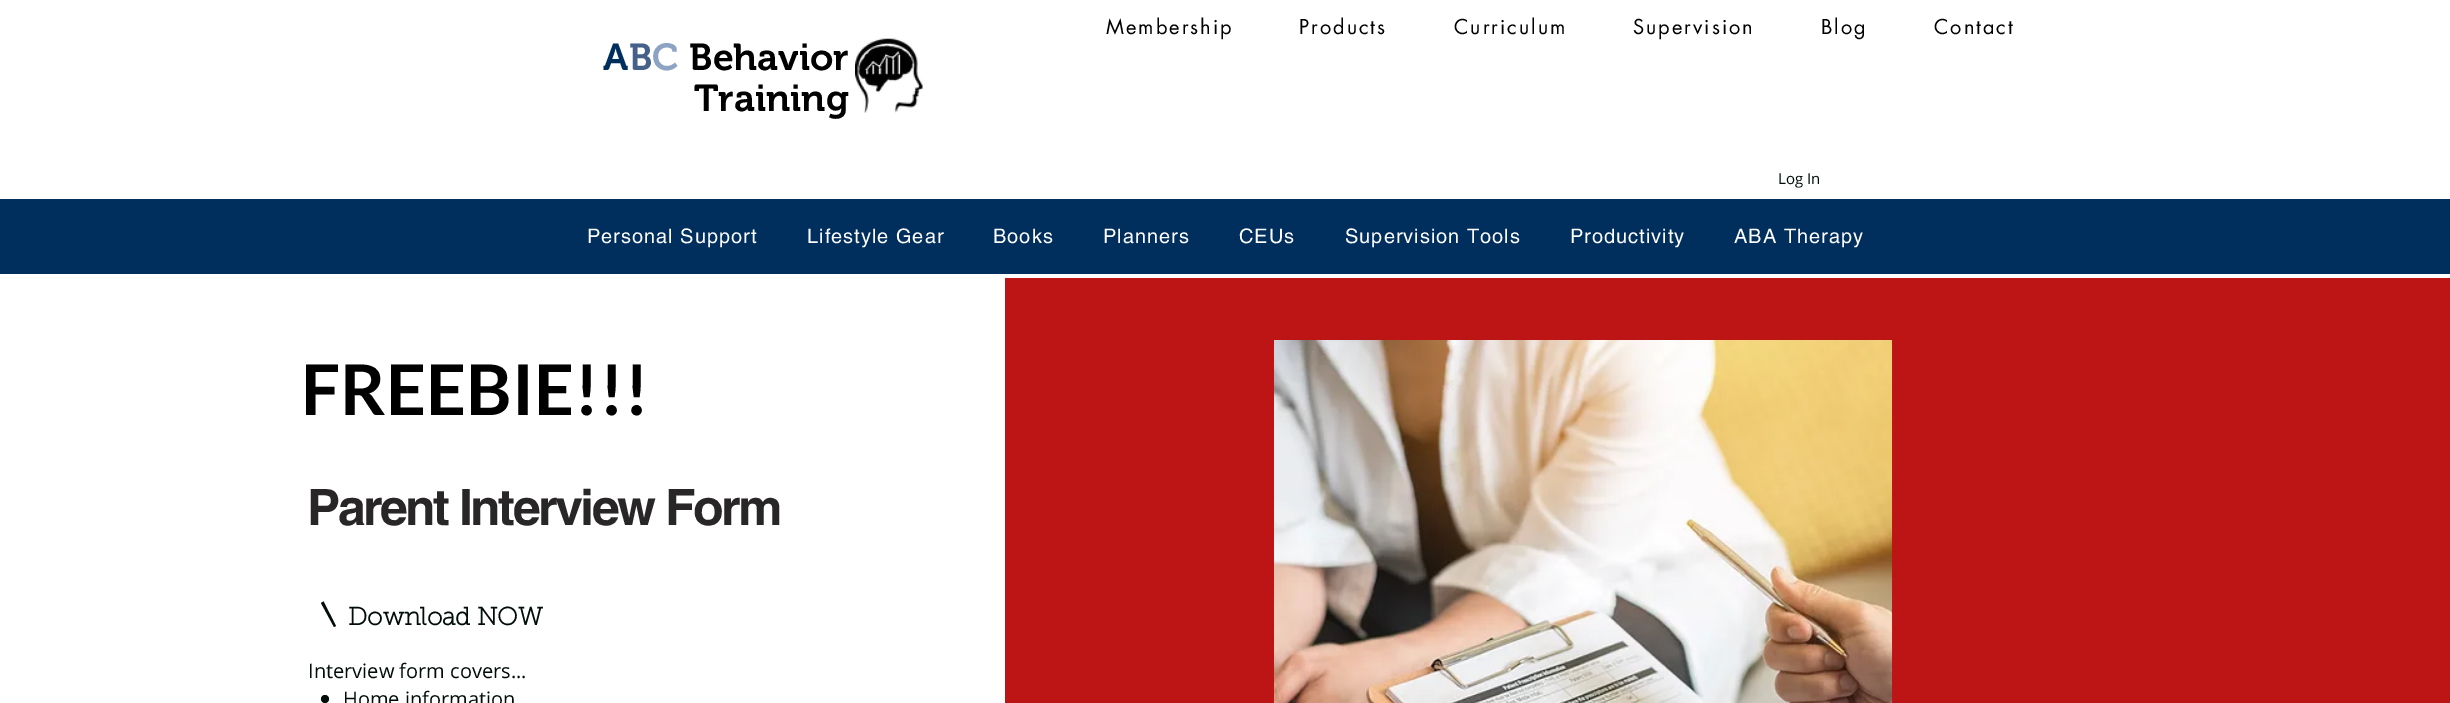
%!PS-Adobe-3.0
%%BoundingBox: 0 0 2450 703
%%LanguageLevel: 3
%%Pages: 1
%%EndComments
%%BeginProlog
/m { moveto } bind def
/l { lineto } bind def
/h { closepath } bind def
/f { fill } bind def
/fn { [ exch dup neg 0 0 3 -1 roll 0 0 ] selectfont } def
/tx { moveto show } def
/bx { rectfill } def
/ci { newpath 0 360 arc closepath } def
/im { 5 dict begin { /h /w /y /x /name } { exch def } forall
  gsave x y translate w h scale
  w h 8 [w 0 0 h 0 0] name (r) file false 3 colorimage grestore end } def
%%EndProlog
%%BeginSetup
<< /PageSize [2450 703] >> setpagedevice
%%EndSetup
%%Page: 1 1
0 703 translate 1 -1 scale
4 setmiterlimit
1 setgray
0 0 2450 703 bx
/futura-Regular 20 fn
0 setgray
1106 34 m 2 0 (Membership) ashow
1299 34 m 2 0 (Products) ashow
1454 34 m 2 0 (Curriculum) ashow
1633 34 m 2 0 (Supervision) ashow
1821 34 m 2 0 (Blog) ashow
1934 34 m 2 0 (Contact) ashow
/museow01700-SemiBold 37.5 fn
0 0.18 0.365 setrgbcolor
(A) 603 70 tx
0.271 0.38 0.541 setrgbcolor
(B) 629 70 tx
0.553 0.639 0.765 setrgbcolor
(C) 652 70 tx
0 setgray
(Behavior) 689 70 tx
(Training) 694 111 tx
(image0.raw) 855 38 68 75 im
/OpenSans-Regular 15 fn
0 0.051 0.035 setrgbcolor
(Log In) 1778 184 tx
0 0.18 0.365 setrgbcolor
0 199 2450 75 bx
/helvetica-Regular 20 fn
1 setgray
587 243 m 1 0 (Personal Support) ashow
807 243 m 1 0 (Lifestyle Gear) ashow
993 243 m 1 0 (Books) ashow
1103 243 m 1 0 (Planners) ashow
1239 243 m 1 0 (CEUs) ashow
1345 243 m 1 0 (Supervision Tools) ashow
1570 243 m 1 0 (Productivity) ashow
1734 243 m 1 0 (ABA Therapy) ashow
/Lato-Bold 70 fn
0 setgray
(FREEBIE!!!) 301 415 tx
/helvetica-Bold 50 fn
0.157 0.149 0.149 setrgbcolor
307 525 m -2.5 0 (Parent Interview Form) ashow
0 0.051 0.035 setrgbcolor
321 603 m 323.5 601.5 l 336 626 l 334 627 l h f
/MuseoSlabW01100-Bold 25 fn
(Download NOW) 348 625 tx
/OpenSans-Regular 20 fn
(Interview form covers...) 308 678 tx
325 699 4 ci f
(Home information) 343 706 tx
0.741 0.082 0.082 setrgbcolor
1005 278 1445 425 bx
(image1.raw) 1274 340 619 363 im
showpage
%%EOF
